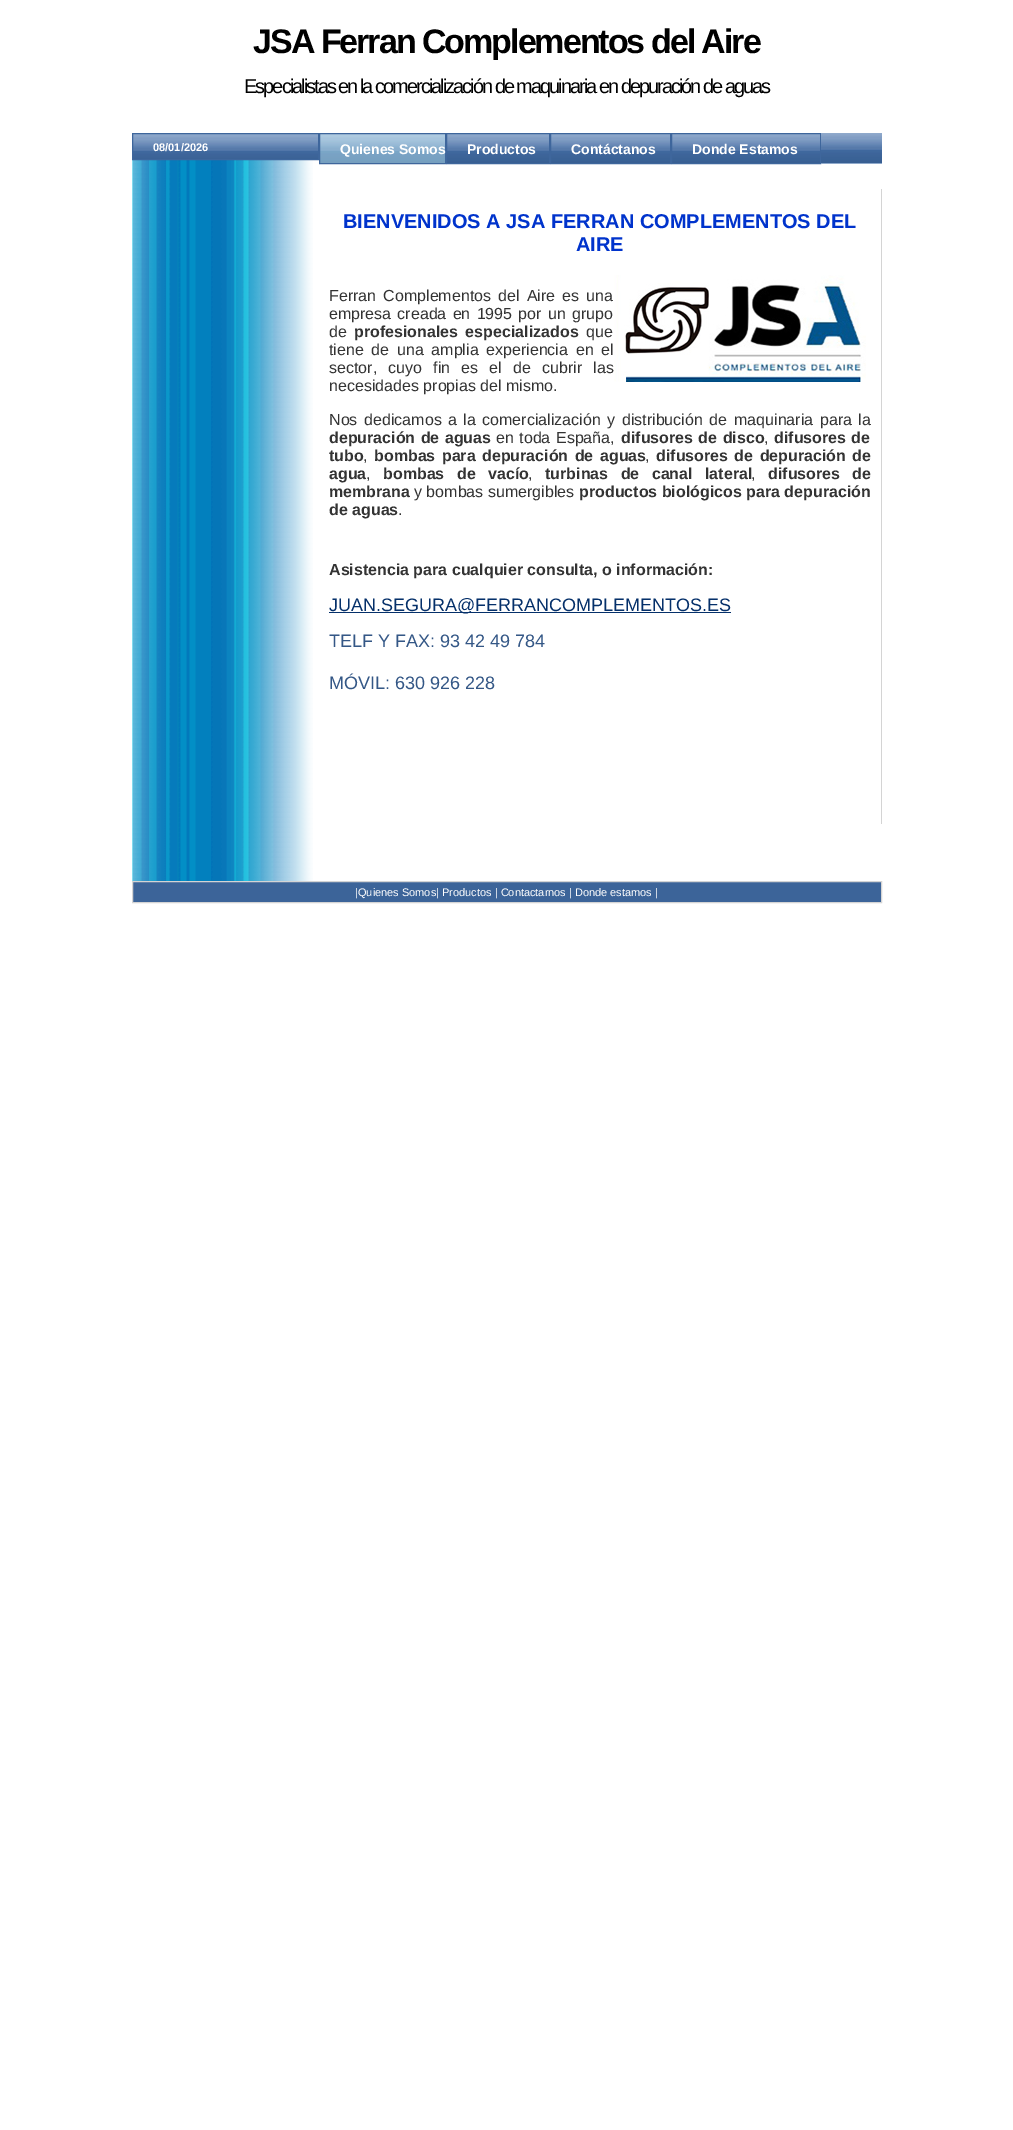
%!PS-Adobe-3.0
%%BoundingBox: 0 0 1013 2130
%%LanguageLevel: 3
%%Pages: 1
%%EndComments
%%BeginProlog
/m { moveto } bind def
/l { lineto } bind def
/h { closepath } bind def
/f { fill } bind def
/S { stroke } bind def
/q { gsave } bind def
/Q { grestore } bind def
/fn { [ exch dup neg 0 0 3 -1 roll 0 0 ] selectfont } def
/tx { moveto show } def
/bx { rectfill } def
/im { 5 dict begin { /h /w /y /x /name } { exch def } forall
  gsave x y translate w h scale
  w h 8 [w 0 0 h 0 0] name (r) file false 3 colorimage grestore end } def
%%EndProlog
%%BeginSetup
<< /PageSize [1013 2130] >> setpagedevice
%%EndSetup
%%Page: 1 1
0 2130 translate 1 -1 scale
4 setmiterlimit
1 setgray
0 0 1013 2130 bx
/LiberationSans-Bold 34 fn
0 setgray
253 53 m -2 0 (JSA Ferran Complementos del Aire) ashow
/LiberationSans-Regular 20 fn
244 93 m -2 0 (Especialistas en la comercialización de maquinaria en depuración de aguas) ashow
(image0.raw) 132 160 181 721 im
(image1.raw) 133 134 185 25 im
0.243 0.4 0.612 setrgbcolor
132.5 133.5 186 26 rectstroke
/LiberationSans-Bold 11 fn
1 setgray
(08/01/2026) 153 151 tx
(image2.raw) 320 134 125 29 im
0.243 0.4 0.612 setrgbcolor
319.5 133.5 126 30 rectstroke
/LiberationSans-Bold 14 fn
1 setgray
(Quienes Somos) 340 154 tx
(image3.raw) 447 134 102 29 im
0.243 0.4 0.612 setrgbcolor
446.5 133.5 103 30 rectstroke
1 setgray
(Productos) 467 154 tx
(image4.raw) 551 134 119 29 im
0.243 0.4 0.612 setrgbcolor
550.5 133.5 120 30 rectstroke
1 setgray
(Contáctanos) 571 154 tx
(image5.raw) 672 134 148 29 im
0.243 0.4 0.612 setrgbcolor
671.5 133.5 149 30 rectstroke
1 setgray
(Donde Estamos) 692 154 tx
(image6.raw) 821 133 61 31 im
/LiberationSans-Bold 20 fn
0 0.2 0.8 setrgbcolor
(BIENVENIDOS A JSA FERRAN COMPLEMENTOS DEL) 343 228 tx
(AIRE) 576 251 tx
/LiberationSans-Regular 16 fn
0.2 setgray
329 301 m 2.75 0 32 (Ferran Complementos del Aire es una) widthshow
329 319 m 1.75 0 32 (empresa creada en 1995 por un grupo) widthshow
(de) 329 337 tx
/LiberationSans-Bold 16 fn
354 337 m 3 0 32 (profesionales especializados) widthshow
/LiberationSans-Regular 16 fn
(que) 586 337 tx
329 355 m 3.25 0 32 (tiene de una amplia experiencia en el) widthshow
329 373 m 6.75 0 32 (sector, cuyo fin es el de cubrir las) widthshow
(necesidades propias del mismo.) 329 391 tx
(image7.raw) 614 275 252 107 im
329 425 m 2.25 0 32 (Nos dedicamos a) widthshow
463 425 m 2.25 0 32 (la comercialización y distribución de maquinaria para la) widthshow
/LiberationSans-Bold 16 fn
329 443 m 1 0 32 (depuración de aguas) widthshow
/LiberationSans-Regular 16 fn
496 443 m 1 0 32 (en toda España,) widthshow
/LiberationSans-Bold 16 fn
621 443 m 1 0 32 (difusores de disco) widthshow
/LiberationSans-Regular 16 fn
(,) 764 443 tx
/LiberationSans-Bold 16 fn
774 443 m 1 0 32 (difusores de) widthshow
(tubo) 329 461 tx
/LiberationSans-Regular 16 fn
(,) 363 461 tx
/LiberationSans-Bold 16 fn
374 461 m 2 0 32 (bombas para depuración de aguas) widthshow
/LiberationSans-Regular 16 fn
(,) 645 461 tx
/LiberationSans-Bold 16 fn
656 461 m 2 0 32 (difusores de depuración de) widthshow
(agua) 329 479 tx
/LiberationSans-Regular 16 fn
(,) 366 479 tx
/LiberationSans-Bold 16 fn
383 479 m 8 0 32 (bombas de vacío) widthshow
/LiberationSans-Regular 16 fn
(,) 528 479 tx
/LiberationSans-Bold 16 fn
545 479 m 8 0 32 (turbinas de canal lateral) widthshow
/LiberationSans-Regular 16 fn
(,) 751 479 tx
/LiberationSans-Bold 16 fn
768 479 m 8 0 32 (difusores de) widthshow
(membrana) 329 497 tx
/LiberationSans-Regular 16 fn
(y bombas sumergibles) 414 497 tx
/LiberationSans-Bold 16 fn
(productos biológicos para depuración) 579 497 tx
(de aguas) 329 515 tx
/LiberationSans-Regular 16 fn
(.) 398 515 tx
/LiberationSans-Bold 16 fn
(Asistencia para cualquier consulta, o información:) 329 575 tx
0.02 0.188 0.416 setrgbcolor
329 612 402 1 bx
/LiberationSans-Regular 18 fn
(JUAN.SEGURA@FERRANCOMPLEMENTOS.ES) 329 611 tx
0.204 0.341 0.525 setrgbcolor
(TELF Y FAX: 93 42 49 784) 329 647 tx
(MÓVIL: 630 926 228) 329 689 tx
0.831 setgray
881 189 1 635 bx
0.235 0.392 0.6 setrgbcolor
132.5 881.5 m 881.5 881.5 l 881.5 902.5 l 132.5 902.5 l h q f Q
0.831 setgray
S
/LiberationSans-Regular 11 fn
1 setgray
(|Quienes Somos| Productos | Contactarnos | Donde estamos |) 355 896 tx
showpage
%%EOF
